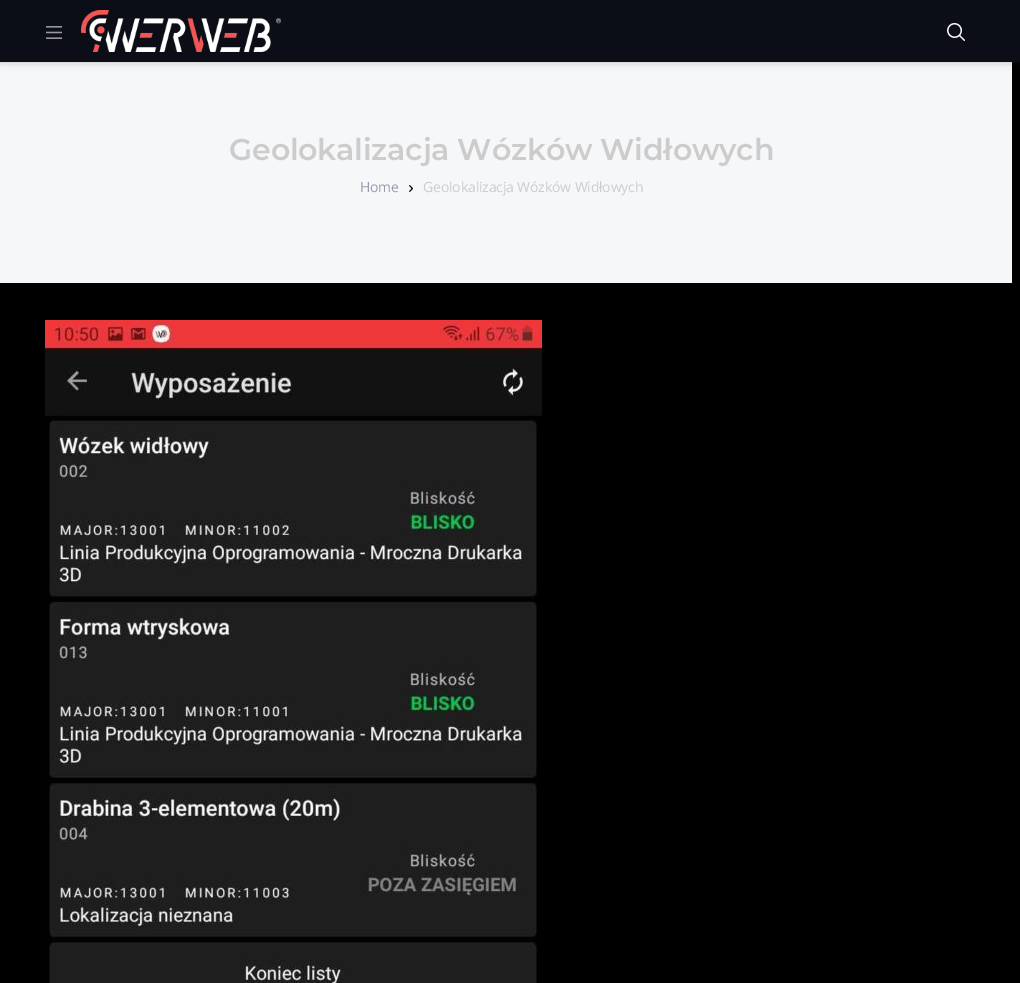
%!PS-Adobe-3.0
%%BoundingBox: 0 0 1020 983
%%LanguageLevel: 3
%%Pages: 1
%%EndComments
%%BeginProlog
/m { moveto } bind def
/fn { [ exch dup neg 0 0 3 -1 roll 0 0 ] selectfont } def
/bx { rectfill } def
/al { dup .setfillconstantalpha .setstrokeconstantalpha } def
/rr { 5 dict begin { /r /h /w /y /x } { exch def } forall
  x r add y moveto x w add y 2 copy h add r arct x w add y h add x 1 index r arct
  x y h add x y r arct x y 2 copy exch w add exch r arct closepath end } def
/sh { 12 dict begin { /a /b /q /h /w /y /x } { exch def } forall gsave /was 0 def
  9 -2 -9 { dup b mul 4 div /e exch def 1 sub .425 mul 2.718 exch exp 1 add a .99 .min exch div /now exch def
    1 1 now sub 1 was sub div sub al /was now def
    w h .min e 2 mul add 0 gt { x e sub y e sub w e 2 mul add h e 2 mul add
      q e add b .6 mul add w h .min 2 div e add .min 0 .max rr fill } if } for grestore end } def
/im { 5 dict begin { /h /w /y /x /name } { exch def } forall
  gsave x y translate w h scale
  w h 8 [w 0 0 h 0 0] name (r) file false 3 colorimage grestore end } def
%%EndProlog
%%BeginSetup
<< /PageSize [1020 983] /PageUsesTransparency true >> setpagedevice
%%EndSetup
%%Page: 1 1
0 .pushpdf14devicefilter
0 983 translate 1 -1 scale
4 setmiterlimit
0 setgray
0 0 1020 983 bx
0.965 0.969 0.976 setrgbcolor
0 62 1012 221 bx
0.2 setgray
0 0 1020 62 0 4 0.3 sh
0.047 0.055 0.09 setrgbcolor
0 0 1020 62 bx
(image0.raw) 46 26 16 13 im
(image1.raw) 81 10 200 42 im
(image2.raw) 947 23 18 18 im
/Montserrat-SemiBold 30 fn
0.8 setgray
229 160 m -0.15 0 (Geolokalizacja Wózków Widłowych) ashow
/OpenSans-Regular 14 fn
0.58 0.612 0.69 setrgbcolor
360 192 m -0.15 0 (Home) ashow
(image3.raw) 409 185 4 7 im
0.8 setgray
423 192 m -0.15 0 (Geolokalizacja Wózków Widłowych) ashow
(image4.raw) 45 320 497 663 im
.poppdf14devicefilter showpage
%%EOF
